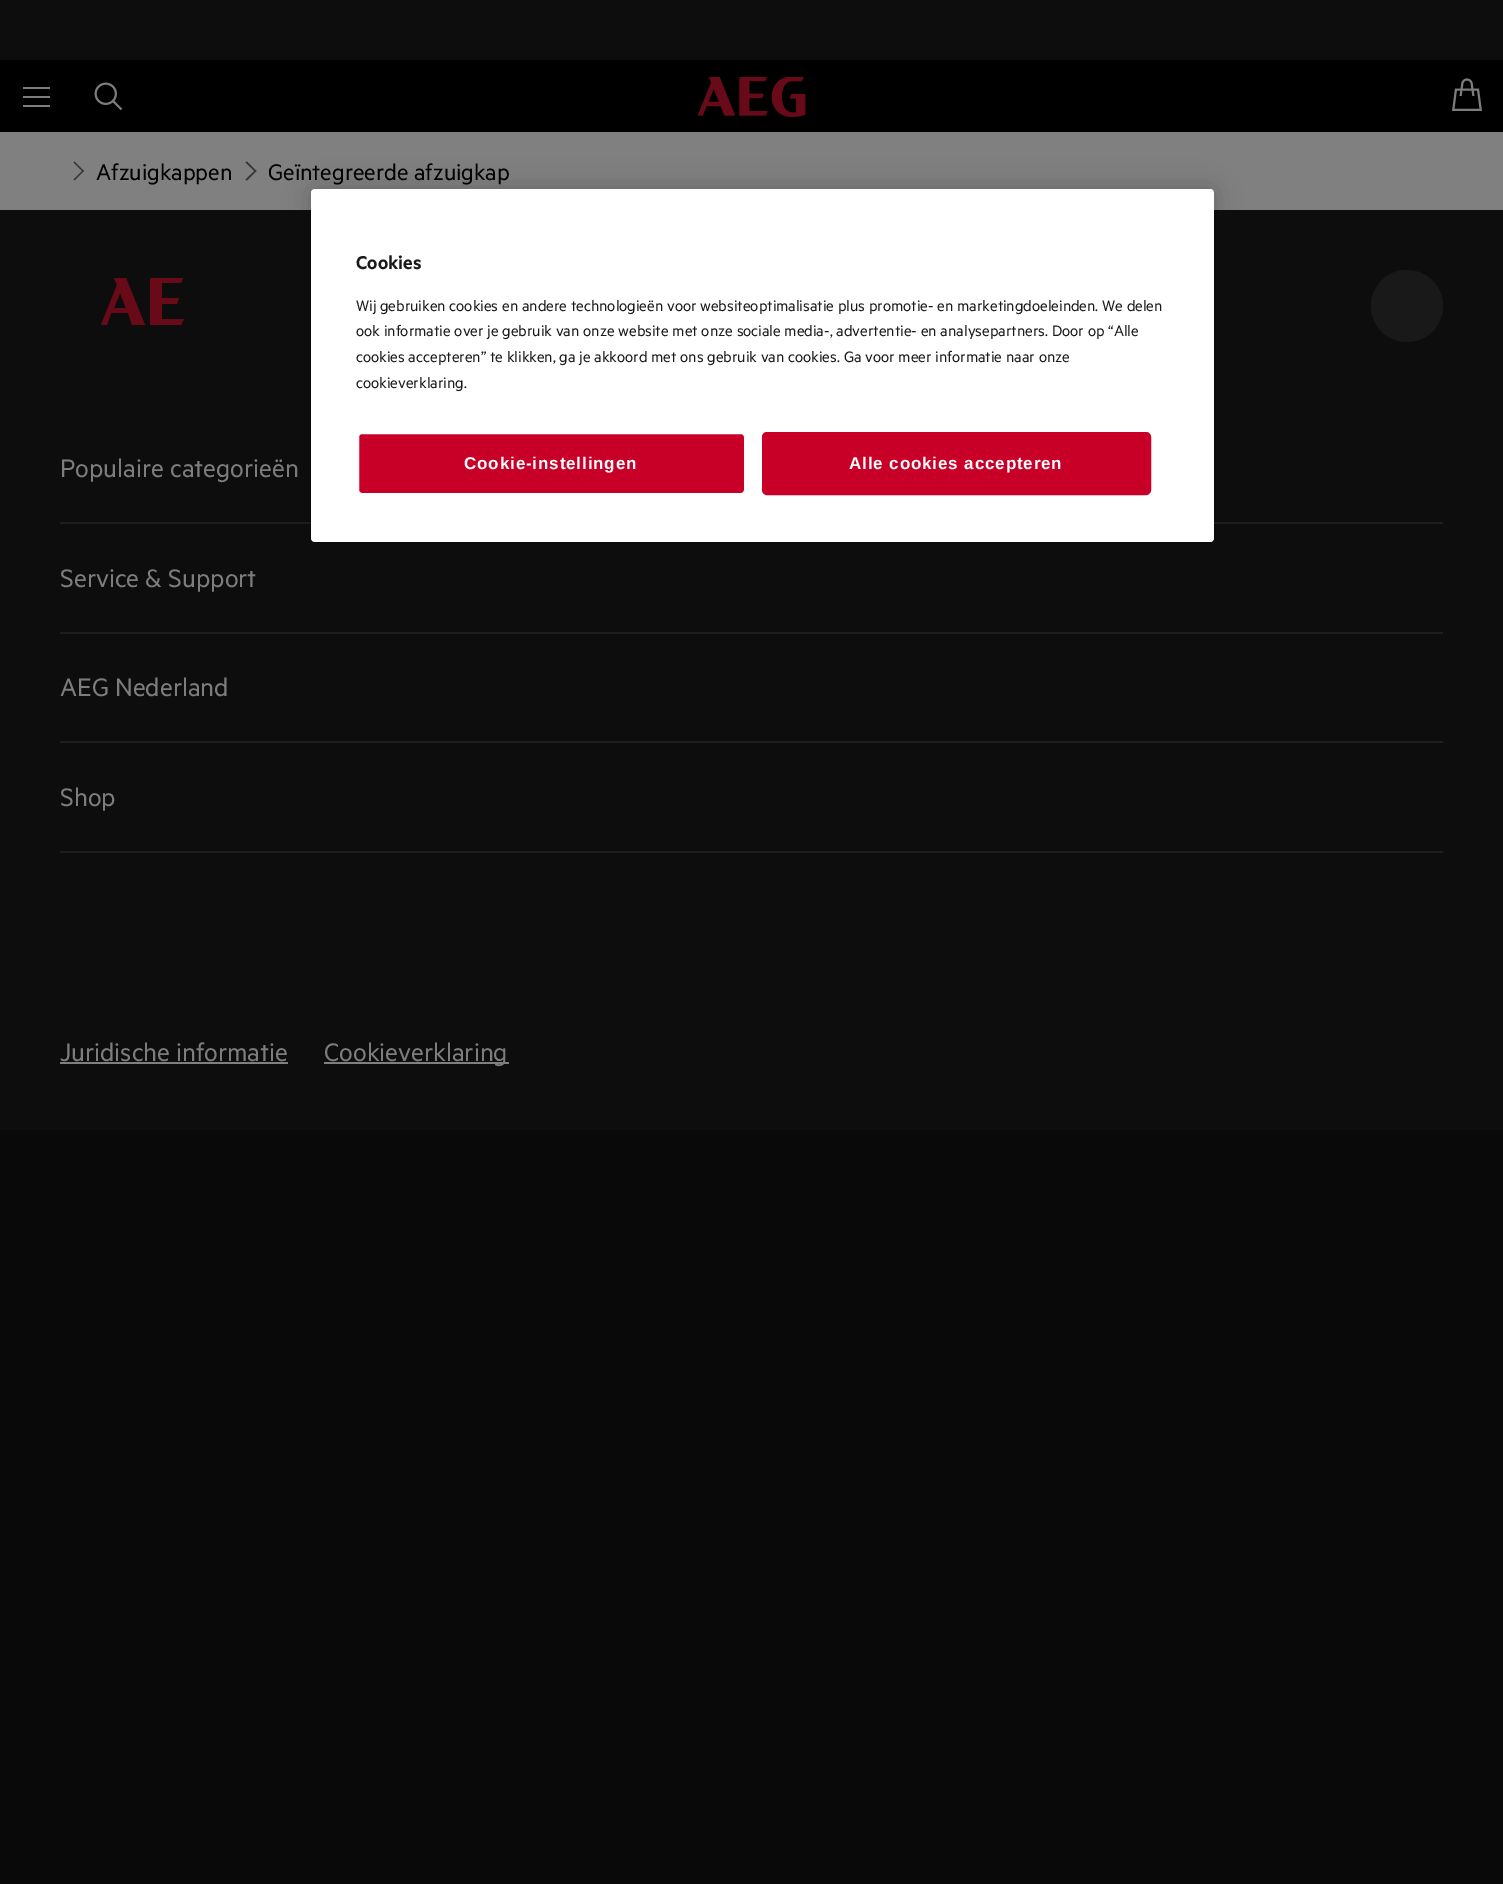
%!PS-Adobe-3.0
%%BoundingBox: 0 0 1503 1884
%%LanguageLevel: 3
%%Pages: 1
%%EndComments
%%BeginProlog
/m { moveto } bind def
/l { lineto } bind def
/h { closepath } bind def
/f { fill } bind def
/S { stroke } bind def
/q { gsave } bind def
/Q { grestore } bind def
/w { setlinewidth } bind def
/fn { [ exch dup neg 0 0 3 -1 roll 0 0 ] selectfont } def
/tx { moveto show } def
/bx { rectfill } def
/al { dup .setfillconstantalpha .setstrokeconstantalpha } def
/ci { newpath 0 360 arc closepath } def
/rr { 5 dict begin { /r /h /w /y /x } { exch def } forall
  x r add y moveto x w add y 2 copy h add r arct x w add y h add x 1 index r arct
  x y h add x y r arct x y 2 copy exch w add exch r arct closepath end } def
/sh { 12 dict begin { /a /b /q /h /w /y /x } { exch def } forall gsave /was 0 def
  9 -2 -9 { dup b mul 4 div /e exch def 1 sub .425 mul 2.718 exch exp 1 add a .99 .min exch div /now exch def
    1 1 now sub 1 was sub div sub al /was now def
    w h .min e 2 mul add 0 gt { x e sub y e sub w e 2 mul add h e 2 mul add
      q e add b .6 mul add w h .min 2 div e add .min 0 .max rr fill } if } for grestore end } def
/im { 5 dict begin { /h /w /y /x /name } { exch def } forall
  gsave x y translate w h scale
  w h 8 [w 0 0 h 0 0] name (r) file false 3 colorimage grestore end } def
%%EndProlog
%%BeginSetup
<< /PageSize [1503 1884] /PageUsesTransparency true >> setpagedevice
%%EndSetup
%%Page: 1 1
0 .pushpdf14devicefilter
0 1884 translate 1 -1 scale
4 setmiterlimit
0.035 setgray
0 0 1503 1884 bx
0.051 setgray
0 0 1503 60 bx
0 setgray
0 60 1503 72 bx
0.49 setgray
23 96 27 2 bx
23 87 27 2 bx
23 105 27 2 bx
(image0.raw) 94 82 29 29 im
(image1.raw) 698 77 108 40 im
(image2.raw) 1452 78 30 33 im
0.502 setgray
0 132 1503 78 bx
0.208 setgray
74.5 161.5 m 84 171 l 83 172 l 73.5 162.5 l h f
83 170 m 84 171 l 74.5 180.5 l 73.5 179.5 l h f
/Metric-Regular 25.5 fn
0 setgray
(Afzuigkappen) 96 180 tx
0.208 setgray
247 161.5 m 256.5 171 l 255.5 172 l 245.5 162.5 l h f
255.5 170 m 256.5 171 l 247 180.5 l 245.5 179.5 l h f
0 setgray
(Geïntegreerde afzuigkap) 268 180 tx
0.051 setgray
0 210 1503 920 bx
0.408 0.039 0.094 setrgbcolor
114 278 m 117 285 l 101 325 l 107 325 l 111 313 l 128 313 l 132 325 l 145 325 l 126 278 l h 114 308 m 120 293 l 126 308 l h f
162 304 m 177 304 l 179 298 l 162 298 l 162 283 l 181 283 l 183 278 l 150 278 l 150 325 l 181 325 l 184 319 l 162 319 l h f
0.098 setgray
1407 306 36 ci f
0.118 setgray
60 522 1383 2 bx
/Metric-Regular 28.5 fn
0.49 setgray
(Populaire categorieën) 60 477 tx
0.118 setgray
60 632 1383 2 bx
0.49 setgray
(Service & Support) 60 587 tx
0.118 setgray
60 741 1383 2 bx
0.49 setgray
(AEG Nederland) 60 696 tx
0.118 setgray
60 851 1383 2 bx
0.49 setgray
(Shop) 60 806 tx
(Juridische informatie) 60 1061 tx
0.502 setgray
60 1062 228 2 bx
324 1062 185 2 bx
0.49 setgray
(Cookieverklaring) 324 1061 tx
0 setgray
311 189 903 353 4 13.5 0.2 sh
1 setgray
311 189 903 353 4 rr f
/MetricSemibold-SemiBold 21 fn
0.102 0.102 0.098 setrgbcolor
(Cookies) 356 269 tx
/Metric-Regular 17.05 fn
(Wij gebruiken cookies en andere technologieën voor websiteoptimalisatie plus promotie- en marketingdoeleinden. We delen) 356 311 tx
(ook informatie over je gebruik van onze website met onze sociale media-, advertentie- en analysepartners. Door op “Alle) 356 336 tx
(cookies accepteren” te klikken, ga je akkoord met ons gebruik van cookies. Ga voor meer informatie naar onze) 356 362 tx
(cookieverklaring.) 356 388 tx
0.784 0 0.157 setrgbcolor
358 433 387 61 4 rr q f Q
1 setgray
2 w
S
/LiberationSans-Bold 17.05 fn
464 469 m 0.85 0 (Cookie-instellingen) ashow
0.784 0 0.157 setrgbcolor
763 433 387 61 4 rr q f Q
S
1 setgray
849 469 m 0.85 0 (Alle cookies accepteren) ashow
.poppdf14devicefilter showpage
%%EOF
